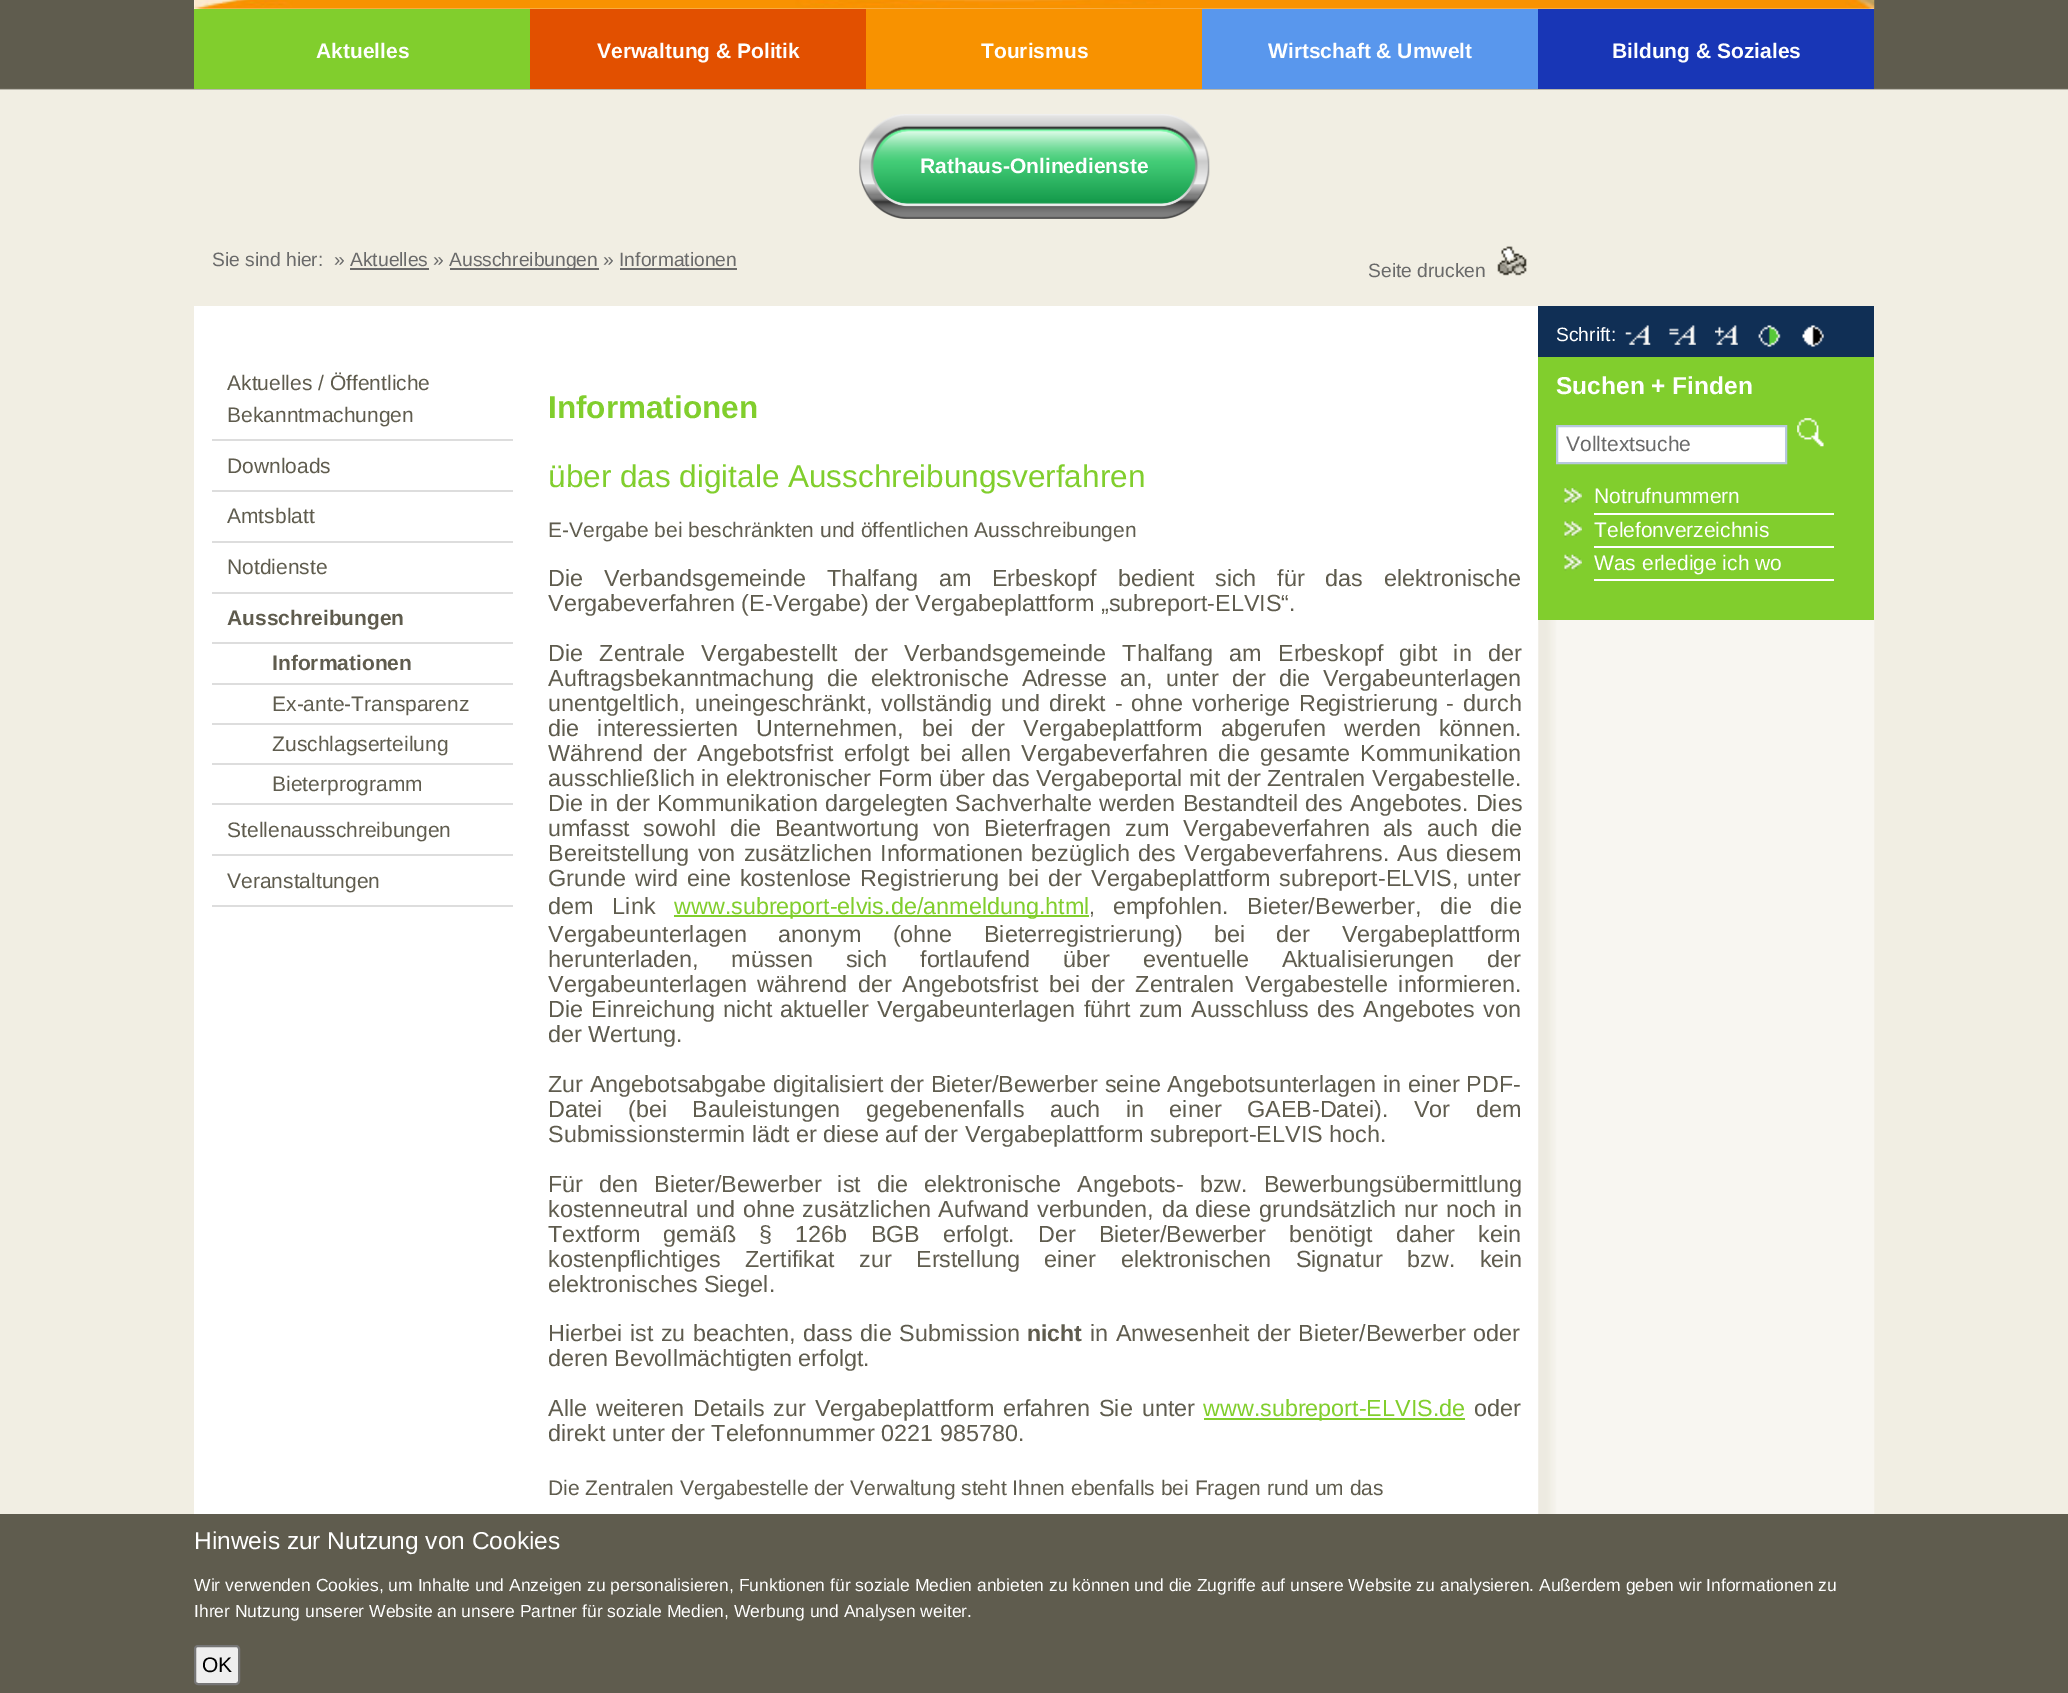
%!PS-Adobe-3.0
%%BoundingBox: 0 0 2068 1693
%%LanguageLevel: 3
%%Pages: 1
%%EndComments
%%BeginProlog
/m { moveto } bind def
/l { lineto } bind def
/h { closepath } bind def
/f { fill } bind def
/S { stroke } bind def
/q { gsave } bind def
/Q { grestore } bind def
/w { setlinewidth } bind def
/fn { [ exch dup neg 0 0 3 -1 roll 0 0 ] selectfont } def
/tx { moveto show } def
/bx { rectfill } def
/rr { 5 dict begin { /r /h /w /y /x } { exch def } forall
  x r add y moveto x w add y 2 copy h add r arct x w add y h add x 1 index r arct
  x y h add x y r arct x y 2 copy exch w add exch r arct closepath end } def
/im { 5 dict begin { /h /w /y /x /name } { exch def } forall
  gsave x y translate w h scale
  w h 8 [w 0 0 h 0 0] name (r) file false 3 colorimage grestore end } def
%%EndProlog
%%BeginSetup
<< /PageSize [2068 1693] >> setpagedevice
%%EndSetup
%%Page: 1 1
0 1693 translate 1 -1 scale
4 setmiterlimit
0.945 0.933 0.89 setrgbcolor
0 0 2068 1693 bx
(image0.raw) 0 0 2068 90 im
1 setgray
194 0 1680 9 bx
(image1.raw) 194 0 1681 9 im
0.506 0.808 0.176 setrgbcolor
194 9 336 80 bx
/LiberationSans-Bold 21 fn
1 setgray
(Aktuelles) 316 58 tx
0.886 0.314 0 setrgbcolor
530 9 336 80 bx
1 setgray
(Verwaltung & Politik) 597 58 tx
0.973 0.573 0 setrgbcolor
866 9 336 80 bx
1 setgray
(Tourismus) 981 58 tx
0.349 0.592 0.929 setrgbcolor
1202 9 336 80 bx
1 setgray
(Wirtschaft & Umwelt) 1268 58 tx
0.094 0.212 0.714 setrgbcolor
1538 9 336 80 bx
1 setgray
(Bildung & Soziales) 1612 58 tx
(image2.raw) 859 114 351 105 im
(Rathaus-Onlinedienste) 920 173 tx
/LiberationSans-Regular 19.25 fn
0.416 setgray
(Sie sind hier:  » Aktuelles ») 212 266 tx
450 268 149 2 bx
(Ausschreibungen » Informationen) 449 266 tx
350 268 79 2 bx
620 268 117 2 bx
(Seite drucken) 1368 277 tx
(image3.raw) 1497 246 30 30 im
1 setgray
194 306 1345 1208 bx
(image4.raw) 1538 306 337 1208 im
0.867 setgray
212 439 301 2 bx
/LiberationSans-Regular 21 fn
0.373 0.361 0.306 setrgbcolor
(Aktuelles / Öffentliche) 227 390 tx
(Bekanntmachungen) 227 422 tx
0.867 setgray
212 490 301 2 bx
0.373 0.361 0.306 setrgbcolor
(Downloads) 227 473 tx
0.867 setgray
212 541 301 2 bx
0.373 0.361 0.306 setrgbcolor
(Amtsblatt) 227 523 tx
0.867 setgray
212 592 301 2 bx
0.373 0.361 0.306 setrgbcolor
(Notdienste) 227 574 tx
0.867 setgray
212 642 301 2 bx
/LiberationSans-Bold 21 fn
0.373 0.361 0.306 setrgbcolor
(Ausschreibungen) 227 625 tx
0.867 setgray
212 683 301 2 bx
0.373 0.361 0.306 setrgbcolor
(Informationen) 272 670 tx
0.867 setgray
212 723 301 2 bx
/LiberationSans-Regular 21 fn
0.373 0.361 0.306 setrgbcolor
(Ex-ante-Transparenz) 272 711 tx
0.867 setgray
212 763 301 2 bx
0.373 0.361 0.306 setrgbcolor
(Zuschlagserteilung) 272 751 tx
0.867 setgray
212 803 301 2 bx
0.373 0.361 0.306 setrgbcolor
(Bieterprogramm) 272 791 tx
0.867 setgray
212 854 301 2 bx
0.373 0.361 0.306 setrgbcolor
(Stellenausschreibungen) 227 837 tx
0.867 setgray
212 905 301 2 bx
0.373 0.361 0.306 setrgbcolor
(Veranstaltungen) 227 888 tx
/LiberationSans-Bold 31.5 fn
0.506 0.808 0.176 setrgbcolor
(Informationen) 548 418 tx
/LiberationSans-Regular 31.5 fn
(über das digitale Ausschreibungsverfahren) 548 487 tx
/LiberationSans-Regular 21 fn
0.373 0.361 0.306 setrgbcolor
(E-Vergabe bei beschränkten und öffentlichen Ausschreibungen) 548 537 tx
/LiberationSans-Regular 23.35 fn
548 586 m 14.25 0 32 (Die Verbandsgemeinde Thalfang am Erbeskopf bedient sich für das elektronische) widthshow
(Vergabeverfahren \(E-Vergabe\) der Vergabeplattform „subreport-ELVIS“.) 548 611 tx
548 661 m 9.75 0 32 (Die Zentrale Vergabestellt der Verbandsgemeinde Thalfang am Erbeskopf gibt in der) widthshow
548 686 m 6.5 0 32 (Auftragsbekanntmachung die elektronische Adresse an, unter der die Vergabeunterlagen) widthshow
548 711 m 2.5 0 32 (unentgeltlich, uneingeschränkt, vollständig und direkt - ohne vorherige Registrierung - durch) widthshow
548 736 m 11.75 0 32 (die interessierten Unternehmen, bei der Vergabeplattform abgerufen werden können.) widthshow
548 761 m 4 0 32 (Während der Angebotsfrist erfolgt bei allen Vergabeverfahren die gesamte Kommunikation) widthshow
(ausschließlich in elektronischer Form über das Vergabeportal mit der Zentralen Vergabestelle.) 548 786 tx
548 811 m 0.75 0 32 (Die in der Kommunikation dargelegten Sachverhalte werden Bestandteil des Angebotes. Dies) widthshow
548 836 m 7.25 0 32 (umfasst sowohl die Beantwortung von Bieterfragen zum Vergabeverfahren als auch die) widthshow
548 861 m 1.75 0 32 (Bereitstellung von zusätzlichen Informationen bezüglich des Vergabeverfahrens. Aus diesem) widthshow
548 886 m 2.5 0 32 (Grunde wird eine kostenlose Registrierung bei der Vergabeplattform subreport-ELVIS, unter) widthshow
548 914 m 12.5 0 32 (dem Link) widthshow
0.506 0.808 0.176 setrgbcolor
674 915 415 2 bx
(www.subreport-elvis.de/anmeldung.html) 674 914 tx
/LiberationSans-Regular 21 fn
0.373 0.361 0.306 setrgbcolor
(,) 1089 914 tx
/LiberationSans-Regular 23.35 fn
1113 914 m 12.5 0 32 (empfohlen. Bieter/Bewerber, die die) widthshow
548 942 m 25 0 32 (Vergabeunterlagen anonym \(ohne Bieterregistrierung\) bei der Vergabeplattform) widthshow
548 967 m 26.25 0 32 (herunterladen, müssen sich fortlaufend über eventuelle Aktualisierungen der) widthshow
548 992 m 4.25 0 32 (Vergabeunterlagen während der Angebotsfrist bei der Zentralen Vergabestelle informieren.) widthshow
548 1017 m 1.75 0 32 (Die Einreichung nicht aktueller Vergabeunterlagen führt zum Ausschluss des Angebotes von) widthshow
(der Wertung.) 548 1042 tx
548 1092 m 0.25 0 32 (Zur Angebotsabgabe digitalisiert der Bieter/Bewerber seine Angebotsunterlagen in einer PDF-) widthshow
548 1117 m 19 0 32 (Datei \(bei Bauleistungen gegebenenfalls auch in einer GAEB-Datei\). Vor dem) widthshow
(Submissionstermin lädt er diese auf der Vergabeplattform subreport-ELVIS hoch.) 548 1142 tx
548 1192 m 9.5 0 32 (Für den Bieter/Bewerber ist die elektronische Angebots- bzw. Bewerbungsübermittlung) widthshow
548 1217 m 1.25 0 32 (kostenneutral und ohne zusätzlichen Aufwand verbunden, da diese grundsätzlich nur noch in) widthshow
548 1242 m 16.75 0 32 (Textform gemäß § 126b BGB erfolgt. Der Bieter/Bewerber benötigt daher kein) widthshow
548 1267 m 18 0 32 (kostenpflichtiges Zertifikat zur Erstellung einer elektronischen Signatur bzw. kein) widthshow
(elektronisches Siegel.) 548 1292 tx
548 1341 m 1.25 0 32 (Hierbei ist zu beachten, dass die Submission) widthshow
/LiberationSans-Bold 23 fn
(nicht) 1027 1341 tx
/LiberationSans-Regular 23.35 fn
1090 1341 m 1 0 32 (in Anwesenheit der Bieter/Bewerber oder) widthshow
(deren Bevollmächtigten erfolgt.) 548 1366 tx
548 1416 m 2.5 0 32 (Alle weiteren Details zur Vergabeplattform erfahren Sie unter) widthshow
0.506 0.808 0.176 setrgbcolor
1204 1418 261 2 bx
(www.subreport-ELVIS.de) 1203 1416 tx
0.373 0.361 0.306 setrgbcolor
(oder) 1474 1416 tx
(direkt unter der Telefonnummer 0221 985780.) 548 1441 tx
/LiberationSans-Regular 21 fn
(Die Zentralen Vergabestelle der Verwaltung steht Ihnen ebenfalls bei Fragen rund um das) 548 1495 tx
0.506 0.808 0.176 setrgbcolor
1538 357 336 263 bx
0.063 0.184 0.333 setrgbcolor
1538 306 336 51 bx
/LiberationSans-Regular 19.25 fn
1 setgray
(Schrift:) 1556 341 tx
(image5.raw) 1625 325 26 20 im
(image6.raw) 1669 325 27 20 im
(image7.raw) 1715 325 23 20 im
(image8.raw) 1758 325 23 22 im
(image9.raw) 1802 325 22 22 im
/LiberationSans-Bold 24.5 fn
(Suchen + Finden) 1556 394 tx
1557 426 m 1786 426 l 1786 463 l 1557 463 l h q f Q
0.718 0.784 0.871 setrgbcolor
2 w
S
/LiberationSans-Regular 21 fn
0.416 setgray
(Volltextsuche) 1566 451 tx
(image10.raw) 1797 418 27 29 im
1 setgray
1594 513 240 2 bx
(image11.raw) 1564 488 18 16 im
(Notrufnummern) 1594 503 tx
1594 546 240 2 bx
(image12.raw) 1564 521 18 17 im
(Telefonverzeichnis) 1594 537 tx
1594 579 240 2 bx
(image13.raw) 1564 554 18 17 im
(Was erledige ich wo) 1594 570 tx
0.373 0.361 0.306 setrgbcolor
0 1514 2068 179 bx
/LiberationSans-Regular 24.5 fn
1 setgray
(Hinweis zur Nutzung von Cookies) 194 1549 tx
/LiberationSans-Regular 17.5 fn
(Wir verwenden Cookies, um Inhalte und Anzeigen zu personalisieren, Funktionen für soziale Medien anbieten zu können und die Zugriffe auf unsere Website zu analysieren. Außerdem geben wir Informationen zu) 194 1591 tx
(Ihrer Nutzung unserer Website an unsere Partner für soziale Medien, Werbung und Analysen weiter.) 194 1617 tx
0.937 setgray
195 1646 44 38 3 rr q f Q
0.463 setgray
S
/LiberationSans-Regular 21 fn
0 setgray
(OK) 202 1672 tx
showpage
%%EOF
